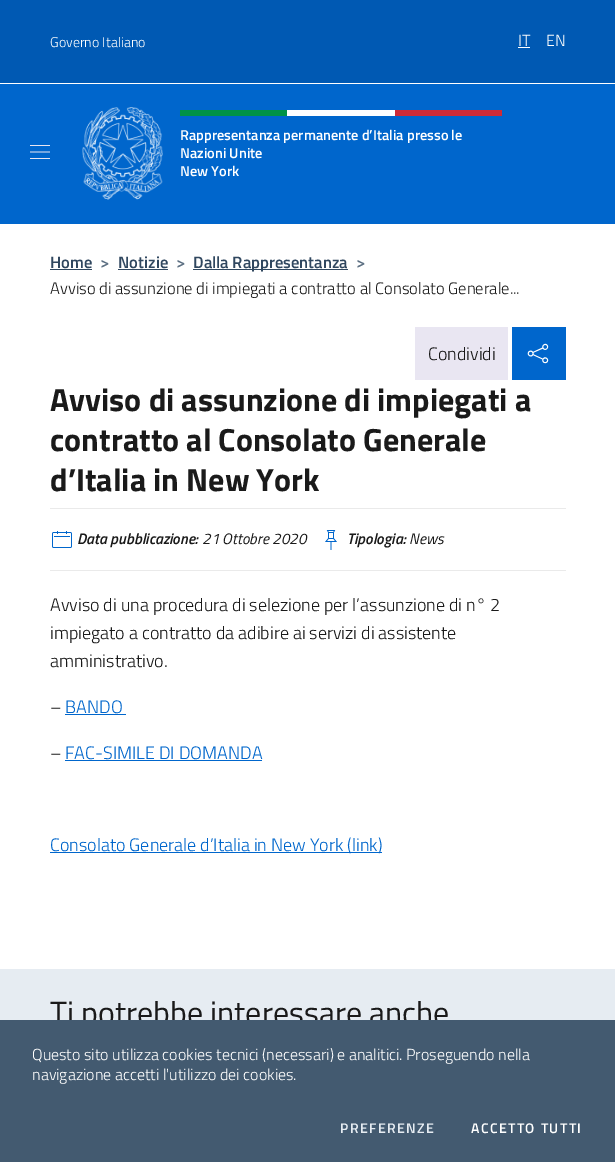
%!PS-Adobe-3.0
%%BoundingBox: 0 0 615 1162
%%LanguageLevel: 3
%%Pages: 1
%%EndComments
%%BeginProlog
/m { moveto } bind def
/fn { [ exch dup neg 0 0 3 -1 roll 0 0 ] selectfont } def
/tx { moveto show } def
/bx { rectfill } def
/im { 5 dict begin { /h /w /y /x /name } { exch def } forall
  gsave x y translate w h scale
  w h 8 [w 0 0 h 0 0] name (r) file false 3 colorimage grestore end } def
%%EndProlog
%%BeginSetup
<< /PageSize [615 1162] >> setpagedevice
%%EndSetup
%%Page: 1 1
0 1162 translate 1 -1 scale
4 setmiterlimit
1 setgray
0 0 615 1162 bx
0 0.349 0.702 setrgbcolor
0 0 615 83 bx
/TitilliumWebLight-Light 14 fn
1 setgray
(Governo Italiano) 50 47 tx
/TitilliumWebLight-Light 16 fn
(IT) 518 46 tx
518 47 12 1 bx
(EN) 546 46 tx
0 0.4 0.8 setrgbcolor
0 84 615 140 bx
(image0.raw) 30 145 20 14 im
(image1.raw) 82 107 81 93 im
0 0.573 0.275 setrgbcolor
180 110 107 6 bx
1 setgray
287 110 108 6 bx
0.808 0.169 0.216 setrgbcolor
395 110 107 6 bx
/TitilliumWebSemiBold-SemiBold 14.4 fn
1 setgray
(Rappresentanza permanente d’Italia presso le) 180 140 tx
(Nazioni Unite) 180 158 tx
(New York) 180 176 tx
/TitilliumWebSemiBold-SemiBold 16.55 fn
0.188 0.278 0.373 setrgbcolor
(Home) 50 268 tx
50 269 42 1 bx
0.365 0.439 0.514 setrgbcolor
(>) 100 268 tx
0.188 0.278 0.373 setrgbcolor
(Notizie) 118 268 tx
118 269 50 1 bx
0.365 0.439 0.514 setrgbcolor
(>) 176 268 tx
0.188 0.278 0.373 setrgbcolor
193 269 155 1 bx
(Dalla Rappresentanza) 193 268 tx
0.365 0.439 0.514 setrgbcolor
(>) 356 268 tx
/TitilliumWebLight-Light 16.55 fn
0.102 setgray
(Avviso di assunzione di impiegati a contratto al Consolato Generale...) 50 294 tx
0 0.4 0.8 setrgbcolor
512 327 54 53 bx
0.914 0.902 0.949 setrgbcolor
415 327 93 53 bx
/TitilliumWebLight-Light 18 fn
0.102 setgray
(Condividi) 428 360 tx
(image2.raw) 527 343 22 21 im
/TitilliumWeb-Bold 32 fn
(Avviso di assunzione di impiegati a) 50 411 tx
(contratto al Consolato Generale) 50 451 tx
(d’Italia in New York) 50 491 tx
0.918 setgray
50 508 516 1 bx
50 570 516 1 bx
(image3.raw) 52 531 20 17 im
/TitilliumWebSemiBold-SemiBoldItalic 15.25 fn
0.102 setgray
(Data pubblicazione:) 77 544 tx
/TitilliumWeb-Italic 15.25 fn
(21 Ottobre 2020) 202 544 tx
(image4.raw) 325 530 12 20 im
/TitilliumWebSemiBold-SemiBoldItalic 15.25 fn
(Tipologia:) 347 544 tx
/TitilliumWeb-Italic 15.25 fn
(News) 409 544 tx
/TitilliumWebLight-Light 18 fn
(Avviso di una procedura di selezione per l’assunzione di n° 2) 50 611 tx
(impiegato a contratto da adibire ai servizi di assistente) 50 639 tx
(amministrativo.) 50 667 tx
(–) 50 713 tx
0 0.4 0.8 setrgbcolor
(BANDO) 65 713 tx
65 714 61 1 bx
0.102 setgray
(–) 50 759 tx
0 0.4 0.8 setrgbcolor
(FAC-SIMILE DI DOMANDA) 65 759 tx
65 760 197 1 bx
50 852 332 1 bx
(Consolato Generale d’Italia in New York \(link\)) 50 851 tx
0.902 0.925 0.949 setrgbcolor
0 969 615 51 bx
/TitilliumWeb-Regular 32 fn
0.102 setgray
(Ti potrebbe interessare anche) 50 1024 tx
0.263 0.353 0.439 setrgbcolor
0 1020 615 142 bx
/TitilliumWebLight-Light 16 fn
1 setgray
(Questo sito utilizza cookies tecnici \(necessari\) e analitici. Proseguendo nella) 32 1060 tx
(navigazione accetti l'utilizzo dei cookies.) 32 1080 tx
/TitilliumWebSemiBold-SemiBold 14 fn
0.902 0.925 0.949 setrgbcolor
340 1133 m 1.4 0 (PREFERENZE) ashow
1 setgray
471 1133 m 1.4 0 (ACCETTO TUTTI) ashow
showpage
%%EOF
